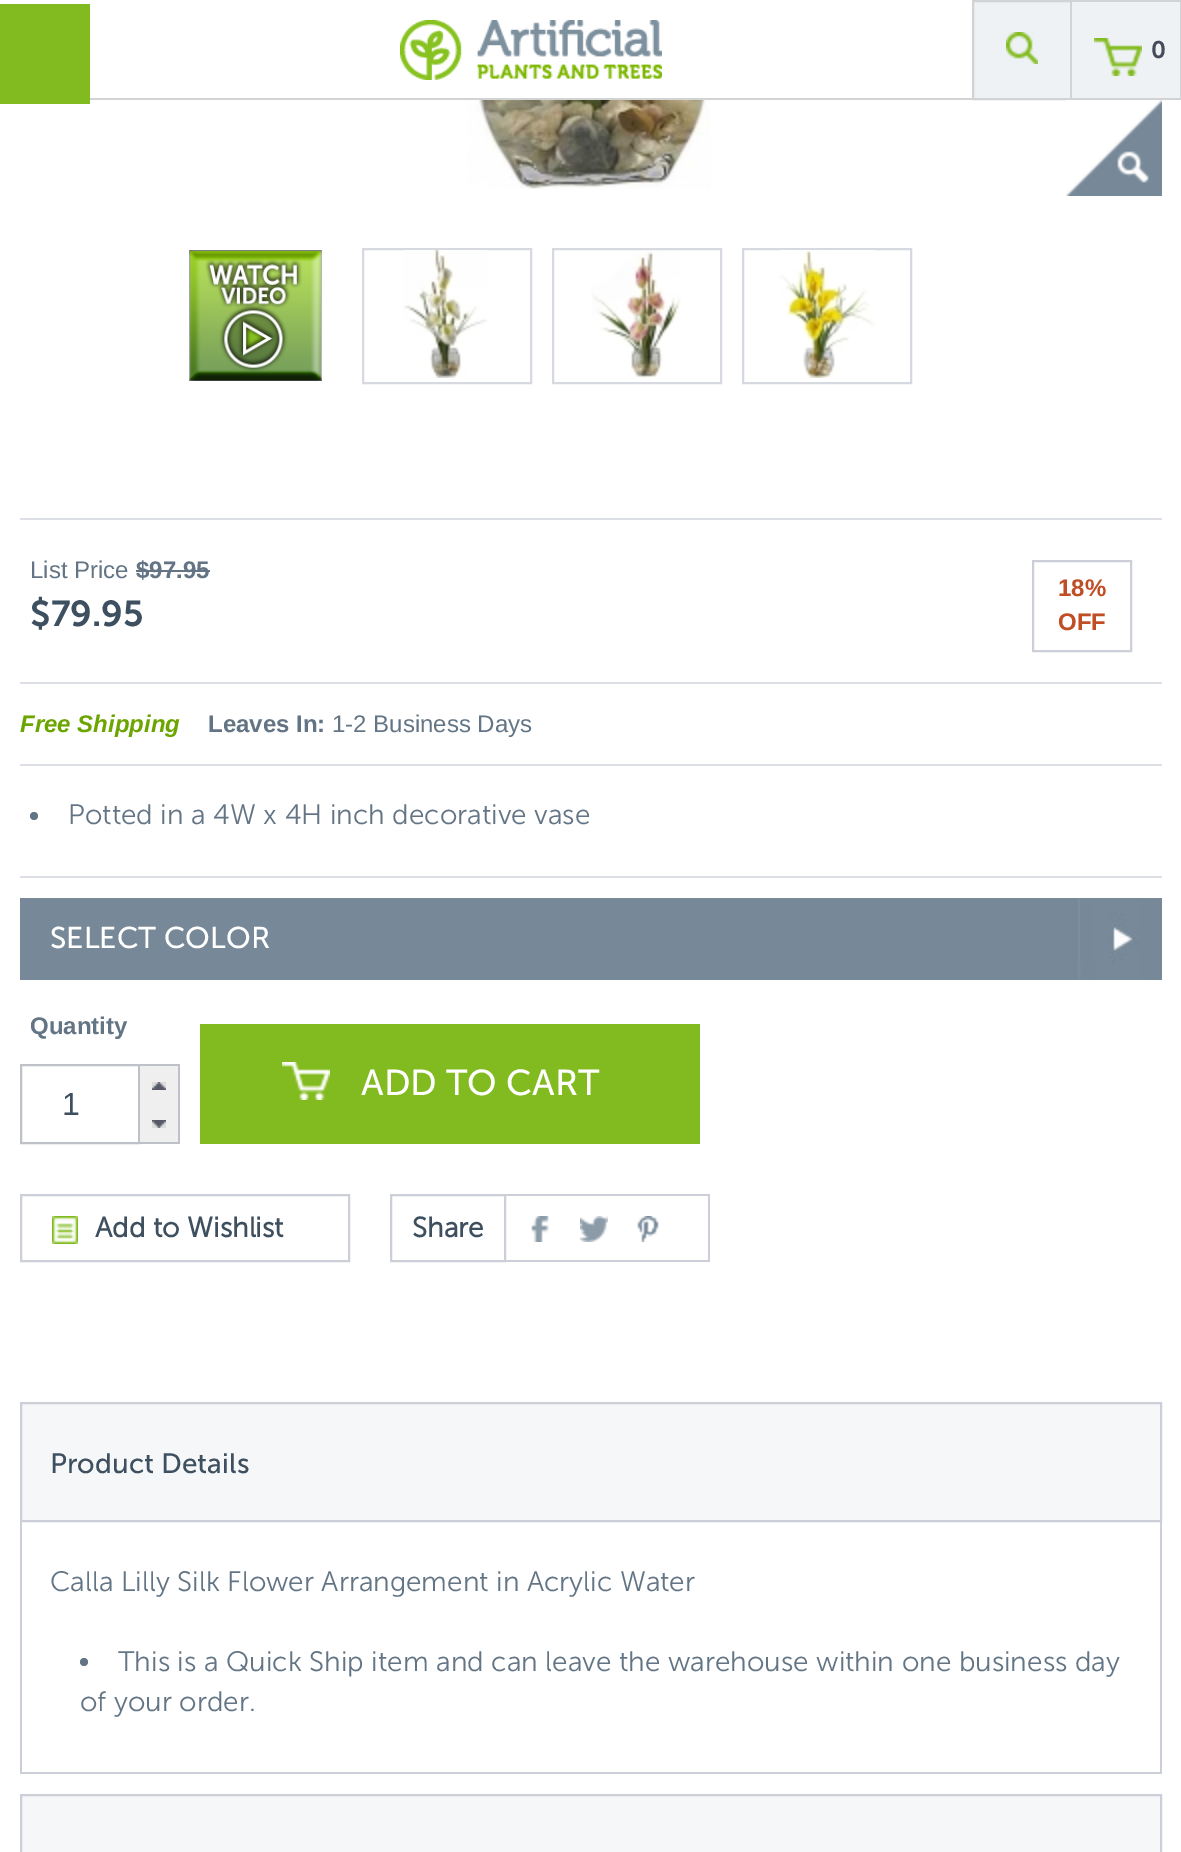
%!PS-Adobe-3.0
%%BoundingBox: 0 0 1181 1852
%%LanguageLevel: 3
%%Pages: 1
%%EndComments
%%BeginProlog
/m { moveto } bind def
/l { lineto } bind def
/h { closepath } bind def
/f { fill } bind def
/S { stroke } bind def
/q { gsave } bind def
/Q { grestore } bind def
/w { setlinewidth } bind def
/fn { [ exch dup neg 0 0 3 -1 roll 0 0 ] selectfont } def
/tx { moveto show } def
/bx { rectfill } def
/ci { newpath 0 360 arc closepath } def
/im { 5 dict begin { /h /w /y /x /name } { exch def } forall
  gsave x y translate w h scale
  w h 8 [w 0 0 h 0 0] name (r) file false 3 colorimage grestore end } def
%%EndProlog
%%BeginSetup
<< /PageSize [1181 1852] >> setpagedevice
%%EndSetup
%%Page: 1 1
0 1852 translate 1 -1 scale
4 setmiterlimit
1 setgray
0 0 1181 1852 bx
0.82 0.827 0.831 setrgbcolor
90 98 1091 2 bx
0.51 0.733 0.122 setrgbcolor
0 4 90 100 bx
(image0.raw) 400 20 262 60 im
0.933 0.949 0.961 setrgbcolor
973 1 m 1071 1 l 1071 99 l 973 99 l h q f Q
0.82 0.827 0.831 setrgbcolor
2 w
S
(image1.raw) 1006 32 32 32 im
0.933 0.949 0.961 setrgbcolor
1072 2 108 96 bx
0.82 0.827 0.831 setrgbcolor
1072 0 109 2 bx
1180 0 1 100 bx
(image2.raw) 1094 38 48 38 im
/MuseoSans-SemiBold 24 fn
0.278 0.294 0.349 setrgbcolor
(0) 1151 58 tx
(image3.raw) 467 100 244 89 im
(image4.raw) 1066 100 96 96 im
(image5.raw) 189 250 133 131 im
0.839 0.851 0.875 setrgbcolor
363 249 168 134 rectstroke
(image6.raw) 403 250 84 128 im
553 249 168 134 rectstroke
(image7.raw) 591 251 90 127 im
743 249 168 134 rectstroke
(image8.raw) 779 250 96 128 im
0.863 0.875 0.902 setrgbcolor
20 518 1142 2 bx
20 682 1142 2 bx
/LiberationSans-Regular 24 fn
0.388 0.459 0.522 setrgbcolor
(List Price) 30 578 tx
/LiberationSans-Bold 24 fn
($97.95) 136 578 tx
136 570 74 2 bx
/MuseoSans-SemiBold 36 fn
0.243 0.314 0.373 setrgbcolor
($79.95) 30 626 tx
0.8 0.812 0.843 setrgbcolor
1033 561 98 90 rectstroke
/LiberationSans-Bold 24 fn
0.757 0.302 0.145 setrgbcolor
(18%) 1058 596 tx
(OFF) 1058 630 tx
0.863 0.875 0.902 setrgbcolor
20 764 1142 2 bx
/LiberationSans-BoldItalic 24 fn
0.42 0.647 0 setrgbcolor
(Free Shipping) 20 732 tx
/LiberationSans-Bold 24 fn
0.388 0.459 0.522 setrgbcolor
(Leaves In:) 208 732 tx
/LiberationSans-Regular 24 fn
(1-2 Business Days) 332 732 tx
0.863 0.875 0.902 setrgbcolor
20 876 1142 2 bx
0.388 0.459 0.522 setrgbcolor
34 816 4 ci f
/MuseoSans-Light 28 fn
(Potted in a 4W x 4H inch decorative vase) 68 824 tx
0.467 0.537 0.6 setrgbcolor
20 898 1142 82 bx
(image9.raw) 1078 898 60 82 im
/MuseoSans-Regular 30 fn
1 setgray
(SELECT COLOR) 50 948 tx
/LiberationSans-Bold 24 fn
0.388 0.459 0.522 setrgbcolor
(Quantity) 30 1034 tx
0.745 0.757 0.784 setrgbcolor
21 1065 118 78 rectstroke
/LiberationSans-Regular 32 fn
0.243 0.314 0.373 setrgbcolor
(1) 62 1115 tx
0.745 0.757 0.784 setrgbcolor
140 1064 40 2 bx
178 1064 2 80 bx
140 1142 40 2 bx
0.937 setgray
140 1066 38 76 bx
(image10.raw) 152 1082 14 8 im
(image11.raw) 152 1120 14 8 im
0.51 0.733 0.122 setrgbcolor
200 1024 500 120 bx
(image12.raw) 282 1062 48 38 im
/MuseoSans-Regular 36 fn
1 setgray
(ADD TO CART) 361 1095 tx
0.8 0.812 0.843 setrgbcolor
21 1195 328 66 rectstroke
(image13.raw) 52 1216 26 28 im
/MuseoSans-Bold 28 fn
0.243 0.314 0.373 setrgbcolor
(Add to Wishlist) 95 1237 tx
0.8 0.812 0.843 setrgbcolor
391 1195 114 66 rectstroke
0.243 0.314 0.373 setrgbcolor
(Share) 412 1237 tx
0.8 0.812 0.843 setrgbcolor
506 1194 204 2 bx
708 1194 2 68 bx
506 1260 204 2 bx
(image14.raw) 531 1216 18 26 im
(image15.raw) 580 1216 28 26 im
(image16.raw) 637 1216 22 26 im
0.961 0.969 0.976 setrgbcolor
21 1403 m 1161 1403 l 1161 1521 l 21 1521 l h q f Q
0.8 0.812 0.843 setrgbcolor
S
/MuseoSans-Regular 28 fn
0.243 0.314 0.373 setrgbcolor
(Product Details) 50 1473 tx
0.8 0.812 0.843 setrgbcolor
1160 1522 2 252 bx
20 1772 1142 2 bx
20 1522 2 252 bx
/MuseoSans-Light 28 fn
0.388 0.459 0.522 setrgbcolor
(Calla Lilly Silk Flower Arrangement in Acrylic Water) 50 1591 tx
84 1662 4 ci f
(This is a Quick Ship item and can leave the warehouse within one business day) 118 1671 tx
(of your order.) 80 1711 tx
0.961 0.969 0.976 setrgbcolor
21 1795 m 1161 1795 l 1161 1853 l 21 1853 l h q f Q
0.8 0.812 0.843 setrgbcolor
S
showpage
%%EOF
